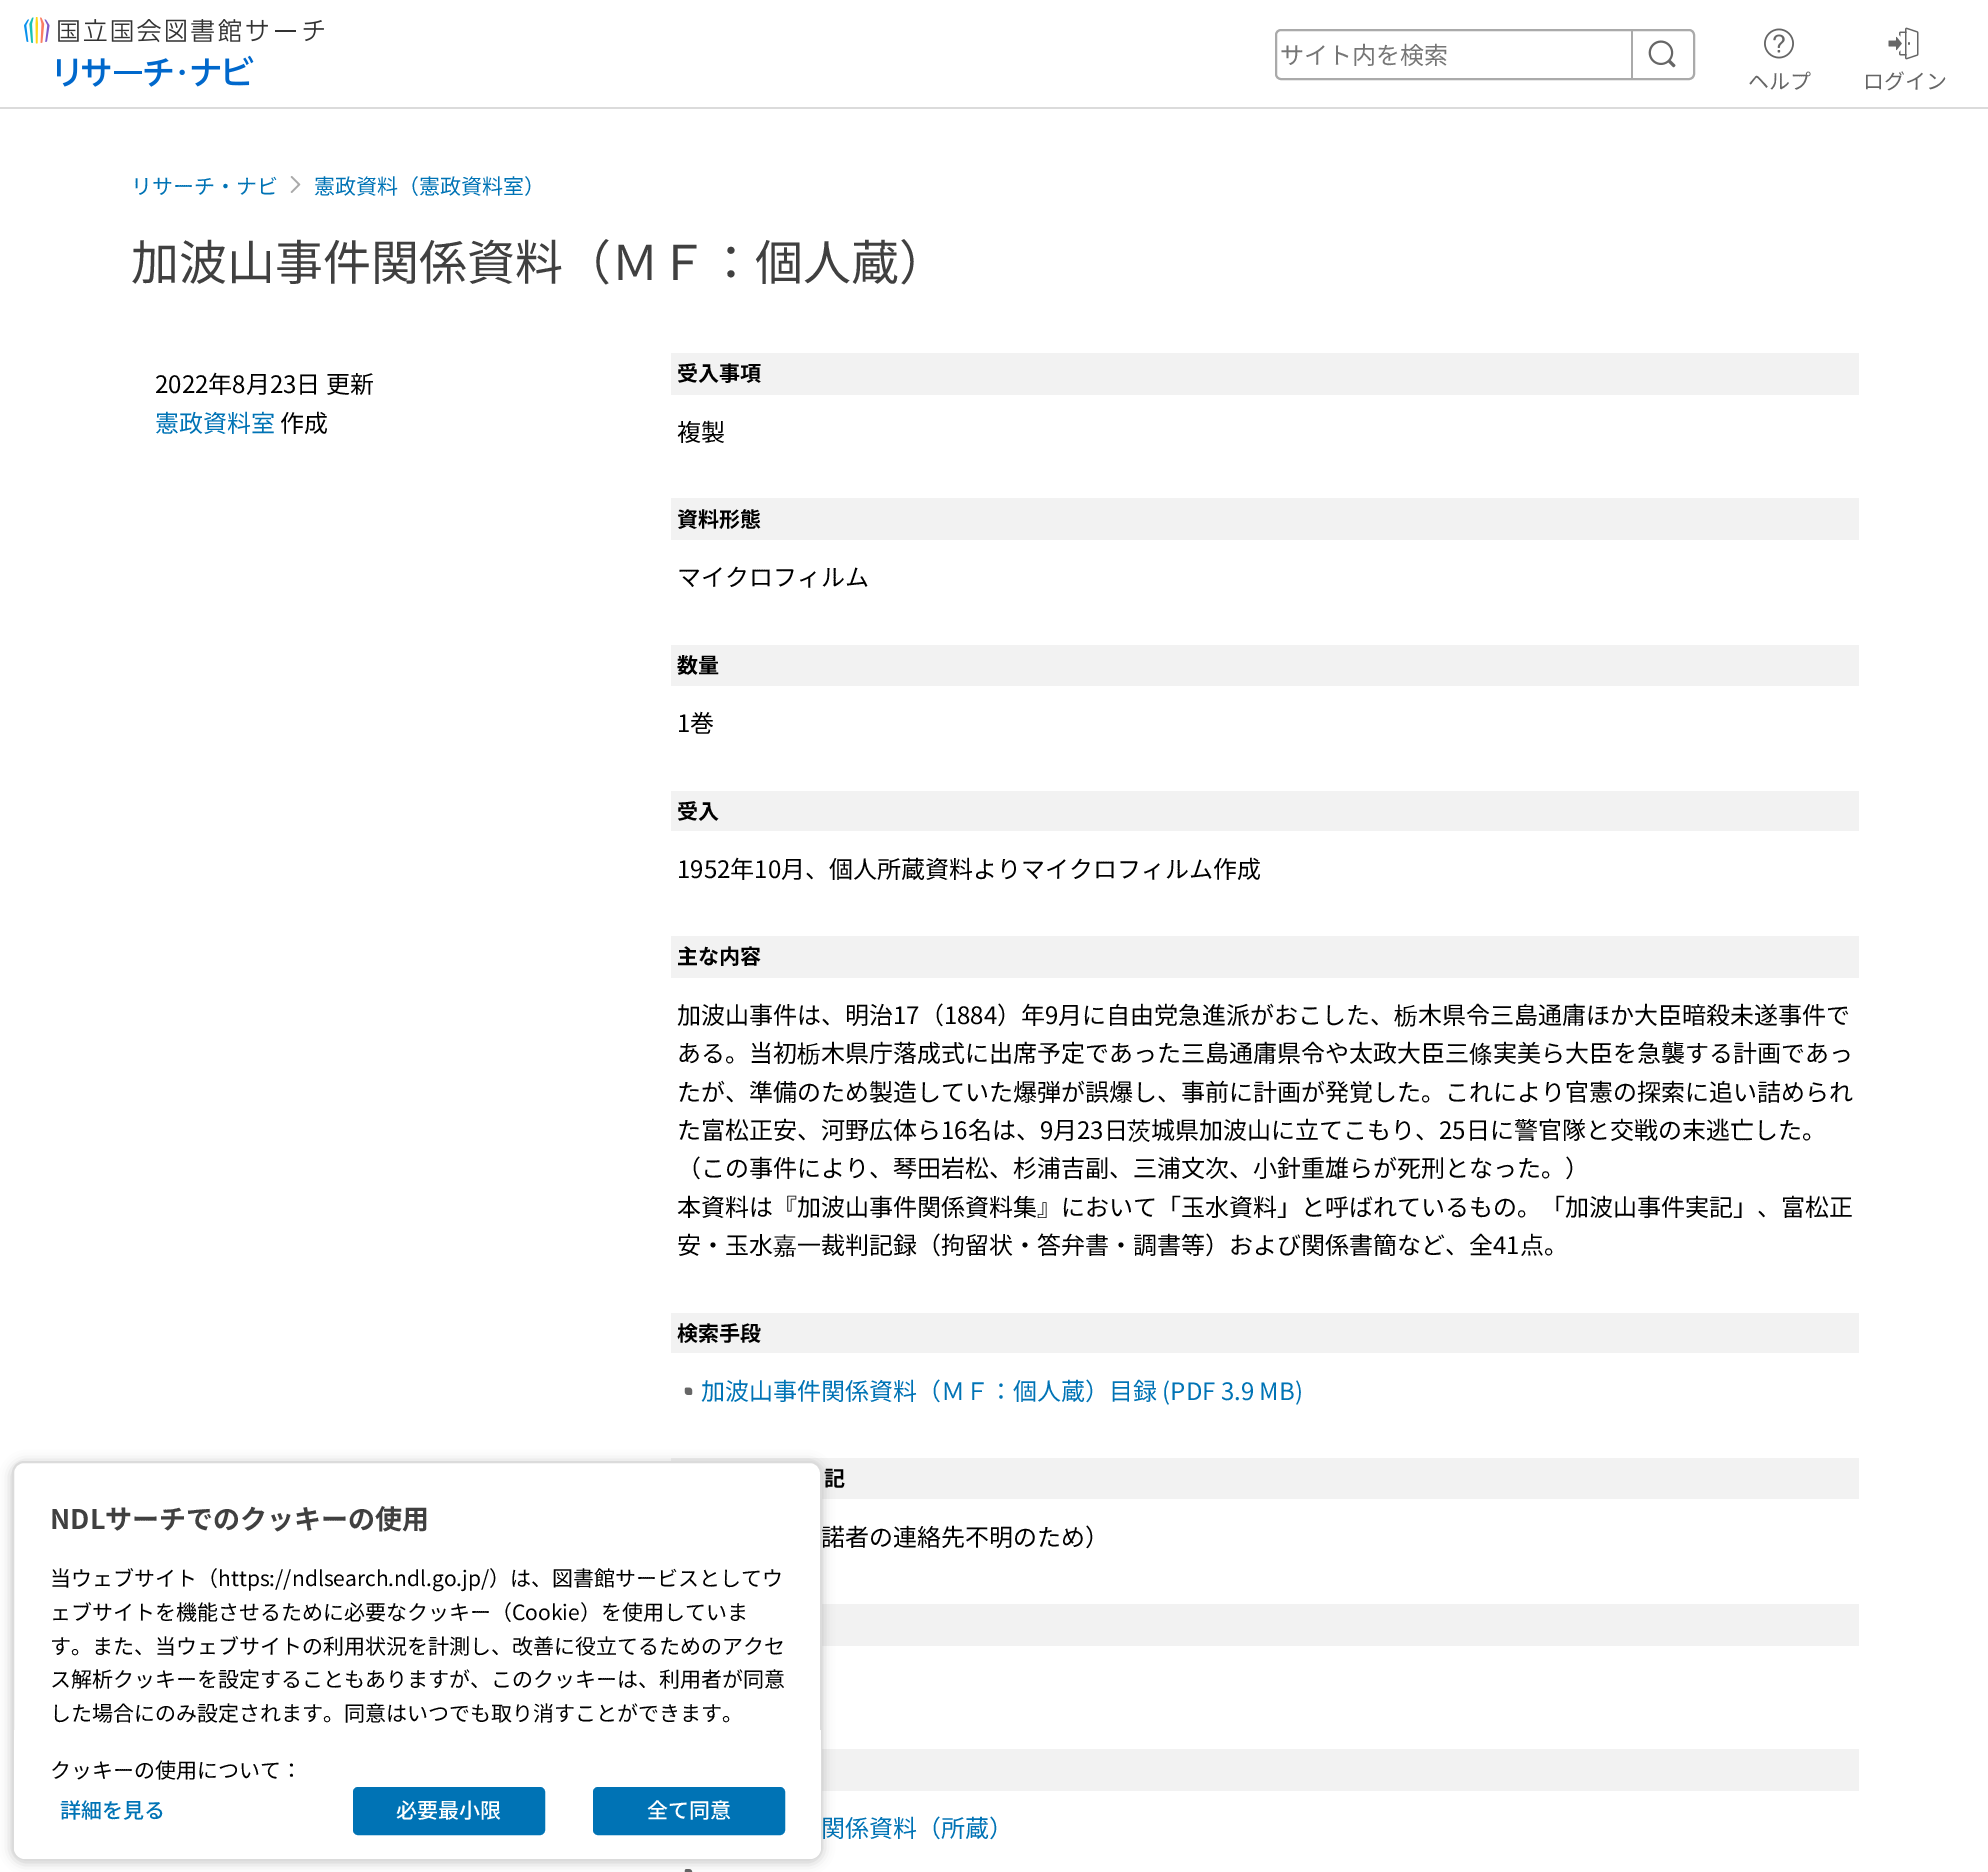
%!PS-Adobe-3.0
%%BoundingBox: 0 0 1988 1872
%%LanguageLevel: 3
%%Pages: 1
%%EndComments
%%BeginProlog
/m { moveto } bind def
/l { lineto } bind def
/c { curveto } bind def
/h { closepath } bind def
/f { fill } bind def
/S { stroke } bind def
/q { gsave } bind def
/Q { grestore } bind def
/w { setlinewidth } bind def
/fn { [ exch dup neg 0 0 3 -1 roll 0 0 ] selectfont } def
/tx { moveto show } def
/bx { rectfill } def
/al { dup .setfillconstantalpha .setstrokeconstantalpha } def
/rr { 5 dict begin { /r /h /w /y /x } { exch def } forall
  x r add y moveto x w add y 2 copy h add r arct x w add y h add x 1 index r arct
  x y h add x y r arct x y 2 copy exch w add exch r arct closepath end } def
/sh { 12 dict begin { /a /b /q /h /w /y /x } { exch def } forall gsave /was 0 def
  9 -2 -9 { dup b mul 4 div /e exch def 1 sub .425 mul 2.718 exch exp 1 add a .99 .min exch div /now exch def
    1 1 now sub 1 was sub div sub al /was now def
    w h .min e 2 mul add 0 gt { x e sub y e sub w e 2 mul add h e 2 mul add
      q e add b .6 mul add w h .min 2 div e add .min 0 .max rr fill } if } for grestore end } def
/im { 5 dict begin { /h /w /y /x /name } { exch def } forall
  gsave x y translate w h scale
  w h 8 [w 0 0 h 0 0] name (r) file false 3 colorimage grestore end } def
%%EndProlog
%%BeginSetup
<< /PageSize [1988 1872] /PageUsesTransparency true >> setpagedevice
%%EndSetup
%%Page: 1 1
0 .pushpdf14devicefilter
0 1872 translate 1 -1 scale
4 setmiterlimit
1 setgray
0 0 1988 1872 bx
0.859 setgray
0 107 1988 2 bx
(image0.raw) 24 17 300 27 im
(image1.raw) 57 55 197 32 im
0.667 setgray
2 w
1276 30 418 49 5 rr S
/NotoSansJP-Regular 24 fn
0.463 setgray
(サイト内を検索) 1280 64 tx
0.667 setgray
1631 29 2 51 bx
(image2.raw) 1648 40 28 28 im
(image3.raw) 1764 28 30 31 im
/NotoSansJP-Regular 21 fn
0.4 setgray
(ヘルプ) 1748 89 tx
(image4.raw) 1888 27 31 33 im
(ログイン) 1863 89 tx
0 0.451 0.71 setrgbcolor
(リサーチ・ナビ) 131 194 tx
(image5.raw) 290 176 11 17 im
(憲政資料（憲政資料室）) 314 194 tx
/NotoSansJP-Regular 48 fn
0.251 setgray
(加波山事件関係資料（ＭＦ：個人蔵）) 131 280 tx
/NotoSansJP-Regular 24 fn
0 setgray
(2022年8月23日 更新) 155 393 tx
0 0.451 0.71 setrgbcolor
(憲政資料室) 155 432 tx
0 setgray
(作成) 280 432 tx
0.949 setgray
671 353 1188 42 bx
/NotoSansJP-Bold 21 fn
0 setgray
(受入事項) 677 381 tx
/NotoSansJP-Regular 24 fn
(複製) 677 441 tx
0.949 setgray
671 498 1188 42 bx
/NotoSansJP-Bold 21 fn
0 setgray
(資料形態) 677 527 tx
/NotoSansJP-Regular 24 fn
(マイクロフィルム) 677 586 tx
0.949 setgray
671 645 1188 41 bx
/NotoSansJP-Bold 21 fn
0 setgray
(数量) 677 673 tx
/NotoSansJP-Regular 24 fn
(1巻) 677 732 tx
0.949 setgray
671 791 1188 40 bx
/NotoSansJP-Bold 21 fn
0 setgray
(受入) 677 819 tx
/NotoSansJP-Regular 24 fn
(1952年10月、個人所蔵資料よりマイクロフィルム作成) 677 878 tx
0.949 setgray
671 936 1188 42 bx
/NotoSansJP-Bold 21 fn
0 setgray
(主な内容) 677 964 tx
/NotoSansJP-Regular 24 fn
(加波山事件は、明治17（1884）年9月に自由党急進派がおこした、) 677 1024 tx
/WenQuanYiZenHei-Medium 24 fn
(栃) 1394 1024 tx
/NotoSansJP-Regular 24 fn
(木県令三島通庸ほか大臣暗殺未遂事件で) 1418 1024 tx
(ある。当初) 677 1062 tx
/WenQuanYiZenHei-Medium 24 fn
(栃) 797 1062 tx
/NotoSansJP-Regular 24 fn
(木県庁落成式に出席予定であった三島通庸県令や太政大臣三) 821 1062 tx
/WenQuanYiZenHei-Medium 24 fn
(條) 1469 1062 tx
/NotoSansJP-Regular 24 fn
(実美ら大臣を急襲する計画であっ) 1493 1062 tx
(たが、準備のため製造していた爆弾が誤爆し、事前に計画が発覚した。これにより官憲の探索に追い詰められ) 677 1101 tx
(た富松正安、河野広体ら16名は、9月23日) 677 1139 tx
/WenQuanYiZenHei-Medium 24 fn
(茨) 1127 1139 tx
/NotoSansJP-Regular 24 fn
(城県加波山に立てこもり、25日に警官隊と交戦の末逃亡した。) 1151 1139 tx
(（この事件により、琴田岩松、杉浦吉副、三浦文次、小針重雄らが死刑となった。）) 677 1177 tx
(本資料は『加波山事件関係資料集』において「玉水資料」と呼ばれているもの。「加波山事件実記」、富松正) 677 1216 tx
(安・玉水) 677 1254 tx
/WenQuanYiZenHei-Medium 24 fn
(嘉) 773 1254 tx
/NotoSansJP-Regular 24 fn
(一裁判記録（拘留状・答弁書・調書等）および関係書簡など、全41点。) 797 1254 tx
0.949 setgray
671 1313 1188 40 bx
/NotoSansJP-Bold 21 fn
0 setgray
(検索手段) 677 1341 tx
(image6.raw) 684 1387 9 8 im
/NotoSansJP-Regular 24 fn
0 0.451 0.71 setrgbcolor
(加波山事件関係資料（ＭＦ：個人蔵）目録 \(PDF 3.9 MB\)) 701 1400 tx
0.949 setgray
671 1458 1188 41 bx
/NotoSansJP-Bold 21 fn
0 setgray
(記) 824 1486 tx
/NotoSansJP-Regular 24 fn
(諾者の連絡先不明のため）) 821 1546 tx
0.949 setgray
822 1604 1037 42 bx
822 1749 1037 42 bx
0 0.451 0.71 setrgbcolor
(関係資料（所蔵）) 821 1837 tx
(image7.raw) 684 1869 9 3 im
0 setgray
12 1463 810 399 12 6 0.24 sh
1 setgray
13 1462 808 397 11 rr q f Q
0.859 setgray
S
/NotoSansJP-Bold 27 fn
0.251 setgray
(NDLサーチでのクッキーの使用) 50 1529 tx
/NotoSansJP-Regular 21 fn
0 setgray
(当ウェブサイト（https://ndlsearch.ndl.go.jp/）は、図書館サービスとしてウ) 50 1586 tx
(ェブサイトを機能させるために必要なクッキー（Cookie）を使用していま) 50 1620 tx
(す。また、当ウェブサイトの利用状況を計測し、改善に役立てるためのアクセ) 50 1654 tx
(ス解析クッキーを設定することもありますが、このクッキーは、利用者が同意) 50 1687 tx
(した場合にのみ設定されます。同意はいつでも取り消すことができます。) 50 1721 tx
1 setgray
14 1730 m 821 1730 l 821 1848 l 821 1854 816 1859 810 1859 c 25 1859 l 19 1859 14 1854 14 1848 c h f
0 setgray
(クッキーの使用について：) 50 1778 tx
/NotoSansJP-Medium 21 fn
0 0.451 0.71 setrgbcolor
(詳細を見る) 60 1818 tx
354 1788 190 46 4 rr q f Q
S
1 setgray
(必要最小限) 396 1818 tx
0 0.451 0.71 setrgbcolor
594 1788 190 46 4 rr q f Q
S
1 setgray
(全て同意) 647 1818 tx
.poppdf14devicefilter showpage
%%EOF
